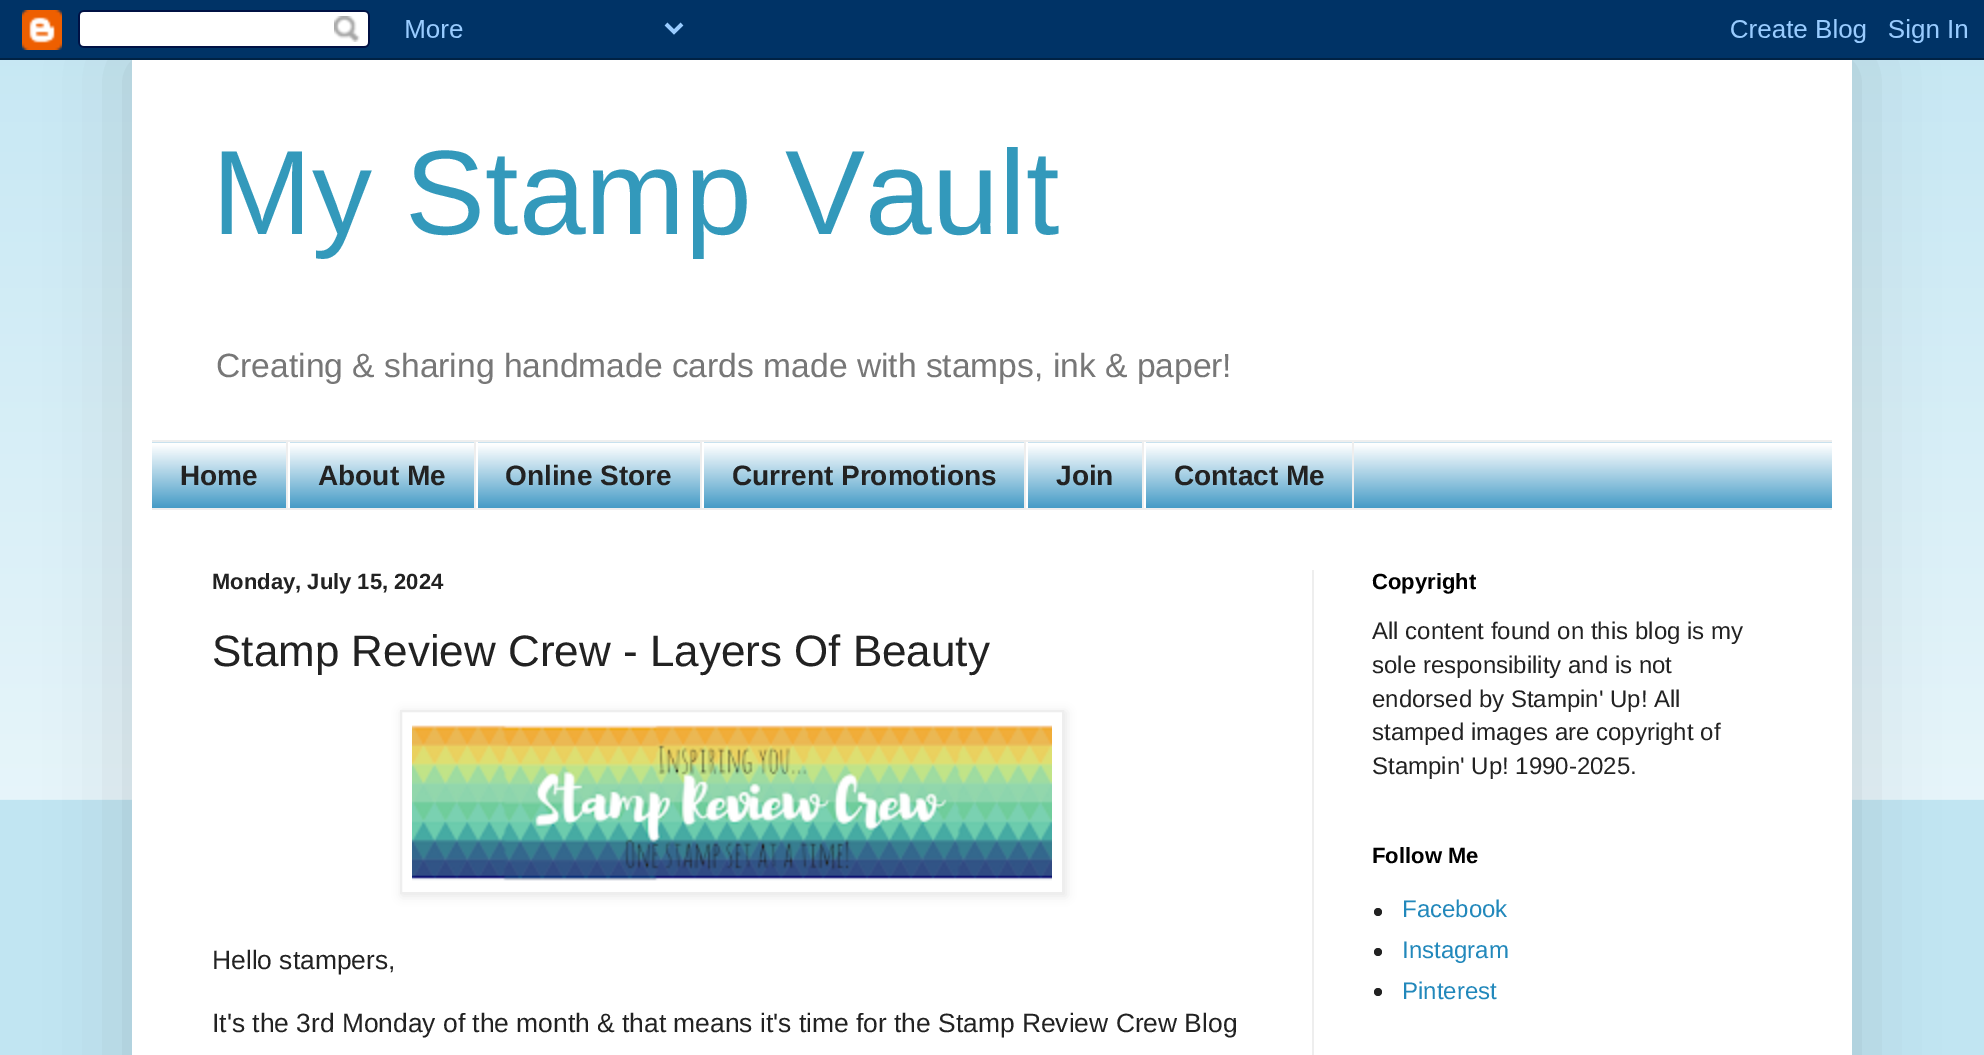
%!PS-Adobe-3.0
%%BoundingBox: 0 0 1984 1055
%%LanguageLevel: 3
%%Pages: 1
%%EndComments
%%BeginProlog
/m { moveto } bind def
/l { lineto } bind def
/h { closepath } bind def
/f { fill } bind def
/q { gsave } bind def
/Q { grestore } bind def
/w { setlinewidth } bind def
/fn { [ exch dup neg 0 0 3 -1 roll 0 0 ] selectfont } def
/tx { moveto show } def
/bx { rectfill } def
/al { dup .setfillconstantalpha .setstrokeconstantalpha } def
/ci { newpath 0 360 arc closepath } def
/rr { 5 dict begin { /r /h /w /y /x } { exch def } forall
  x r add y moveto x w add y 2 copy h add r arct x w add y h add x 1 index r arct
  x y h add x y r arct x y 2 copy exch w add exch r arct closepath end } def
/sh { 12 dict begin { /a /b /q /h /w /y /x } { exch def } forall gsave /was 0 def
  9 -2 -9 { dup b mul 4 div /e exch def 1 sub .425 mul 2.718 exch exp 1 add a .99 .min exch div /now exch def
    1 1 now sub 1 was sub div sub al /was now def
    w h .min e 2 mul add 0 gt { x e sub y e sub w e 2 mul add h e 2 mul add
      q e add b .6 mul add w h .min 2 div e add .min 0 .max rr fill } if } for grestore end } def
/im { 5 dict begin { /h /w /y /x /name } { exch def } forall
  gsave x y translate w h scale
  w h 8 [w 0 0 h 0 0] name (r) file false 3 colorimage grestore end } def
%%EndProlog
%%BeginSetup
<< /PageSize [1984 1055] /PageUsesTransparency true >> setpagedevice
%%EndSetup
%%Page: 1 1
0 .pushpdf14devicefilter
0 1055 translate 1 -1 scale
4 setmiterlimit
0.757 0.898 0.949 setrgbcolor
0 0 1984 1055 bx
(image1.raw) 0 60 1984 740 im
0 setgray
132 60 1720 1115 0 40 0.15 sh
(image0.raw) 0 0 1984 60 im
1 setgray
132 60 1720 995 bx
/LiberationSans-Regular 120 fn
0.2 0.6 0.733 setrgbcolor
(My Stamp Vault) 212 234 tx
/LiberationSans-Regular 33.6 fn
0.467 setgray
(Creating & sharing handmade cards made with stamps, ink & paper!) 216 377 tx
0.133 0.533 0.733 setrgbcolor
152 442 1680 66 bx
(image2.raw) 152 442 1680 66 im
0.933 setgray
152 440 1680 2 bx
152 508 1680 2 bx
286 442 2 66 bx
/LiberationSans-Bold 28 fn
0.133 setgray
(Home) 180 485 tx
0.933 setgray
474 442 2 66 bx
1 setgray
288 442 2 66 bx
0.133 setgray
(About Me) 318 485 tx
0.933 setgray
700 442 2 66 bx
1 setgray
476 442 2 66 bx
0.133 setgray
(Online Store) 505 485 tx
0.933 setgray
1024 442 2 66 bx
1 setgray
702 442 2 66 bx
0.133 setgray
(Current Promotions) 732 485 tx
0.933 setgray
1142 442 2 66 bx
1 setgray
1026 442 2 66 bx
0.133 setgray
(Join) 1056 485 tx
0.933 setgray
1352 442 2 66 bx
1 setgray
1144 442 2 66 bx
0.133 setgray
(Contact Me) 1174 485 tx
0.933 setgray
1312 570 2 485 bx
/LiberationSans-Bold 22 fn
0.133 setgray
(Monday, July 15, 2024) 212 589 tx
/LiberationSans-Regular 44 fn
(Stamp Review Crew - Layers Of Beauty) 212 666 tx
q
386 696 m 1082 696 l 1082 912 l 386 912 l h 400 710 m 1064 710 l 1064 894 l 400 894 l h eoclip newpath
0 setgray
402 712 664 184 0 5 0.1 sh
Q
0.933 setgray
2 w
401 711 662 182 rectstroke
(image3.raw) 412 725 640 156 im
/LiberationSans-Regular 26.4 fn
0.133 setgray
(Hello stampers,) 212 969 tx
(It's the 3rd Monday of the month & that means it's time for the Stamp Review Crew Blog) 212 1032 tx
/LiberationSans-Bold 22 fn
0 setgray
(Copyright) 1372 589 tx
/LiberationSans-Regular 24 fn
0.133 setgray
(All content found on this blog is my) 1372 639 tx
(sole responsibility and is not) 1372 673 tx
(endorsed by Stampin' Up! All) 1372 707 tx
(stamped images are copyright of) 1372 740 tx
(Stampin' Up! 1990-2025.) 1372 774 tx
/LiberationSans-Bold 22 fn
0 setgray
(Follow Me) 1372 863 tx
0.133 setgray
1378 912 4 ci f
/LiberationSans-Regular 24 fn
0.133 0.533 0.733 setrgbcolor
(Facebook) 1402 917 tx
0.133 setgray
1378 952 4 ci f
0.133 0.533 0.733 setrgbcolor
(Instagram) 1402 958 tx
0.133 setgray
1378 992 4 ci f
0.133 0.533 0.733 setrgbcolor
(Pinterest) 1402 999 tx
.poppdf14devicefilter showpage
%%EOF
